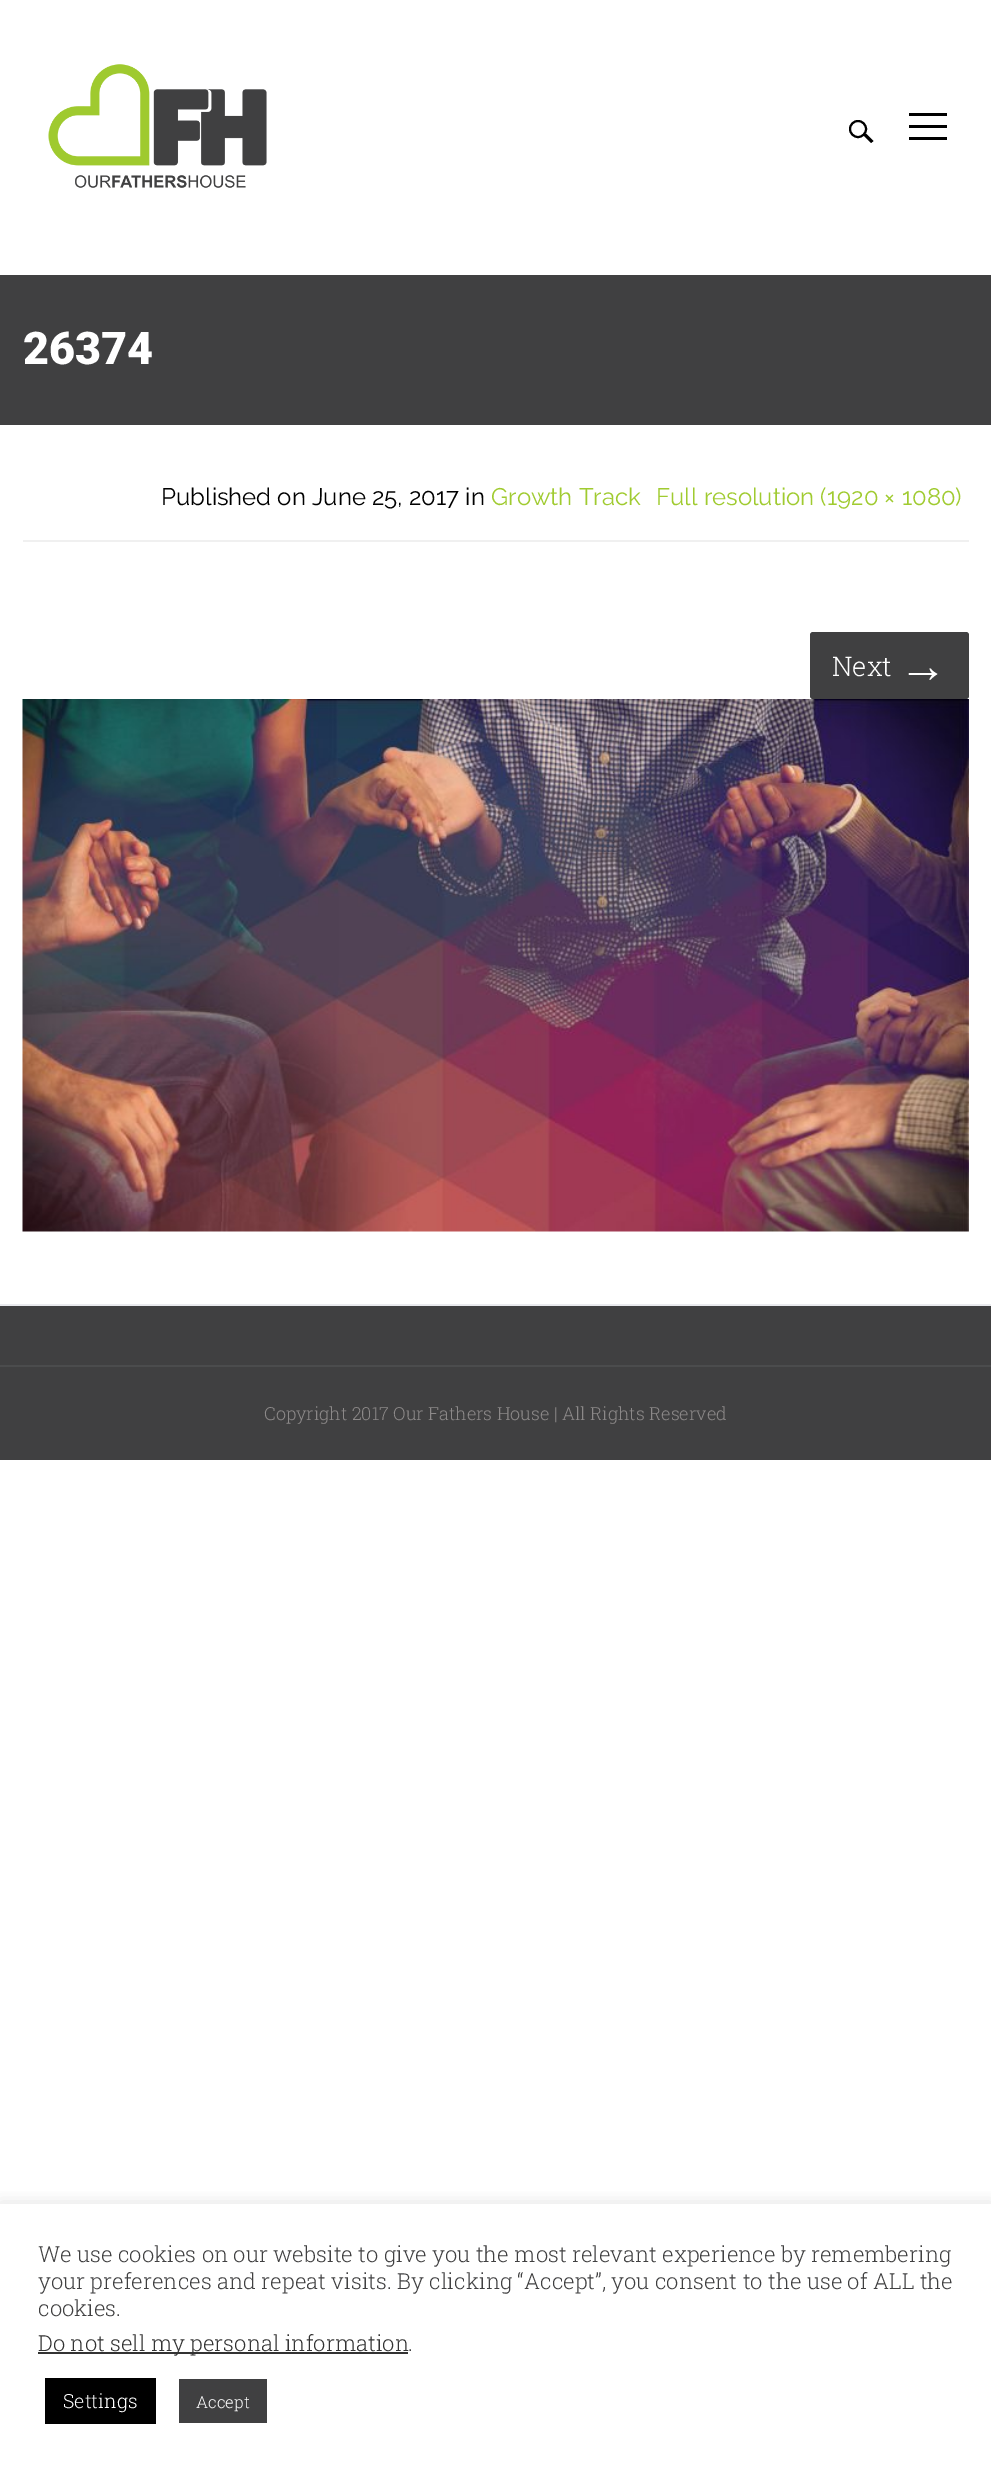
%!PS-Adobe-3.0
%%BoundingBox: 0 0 991 2467
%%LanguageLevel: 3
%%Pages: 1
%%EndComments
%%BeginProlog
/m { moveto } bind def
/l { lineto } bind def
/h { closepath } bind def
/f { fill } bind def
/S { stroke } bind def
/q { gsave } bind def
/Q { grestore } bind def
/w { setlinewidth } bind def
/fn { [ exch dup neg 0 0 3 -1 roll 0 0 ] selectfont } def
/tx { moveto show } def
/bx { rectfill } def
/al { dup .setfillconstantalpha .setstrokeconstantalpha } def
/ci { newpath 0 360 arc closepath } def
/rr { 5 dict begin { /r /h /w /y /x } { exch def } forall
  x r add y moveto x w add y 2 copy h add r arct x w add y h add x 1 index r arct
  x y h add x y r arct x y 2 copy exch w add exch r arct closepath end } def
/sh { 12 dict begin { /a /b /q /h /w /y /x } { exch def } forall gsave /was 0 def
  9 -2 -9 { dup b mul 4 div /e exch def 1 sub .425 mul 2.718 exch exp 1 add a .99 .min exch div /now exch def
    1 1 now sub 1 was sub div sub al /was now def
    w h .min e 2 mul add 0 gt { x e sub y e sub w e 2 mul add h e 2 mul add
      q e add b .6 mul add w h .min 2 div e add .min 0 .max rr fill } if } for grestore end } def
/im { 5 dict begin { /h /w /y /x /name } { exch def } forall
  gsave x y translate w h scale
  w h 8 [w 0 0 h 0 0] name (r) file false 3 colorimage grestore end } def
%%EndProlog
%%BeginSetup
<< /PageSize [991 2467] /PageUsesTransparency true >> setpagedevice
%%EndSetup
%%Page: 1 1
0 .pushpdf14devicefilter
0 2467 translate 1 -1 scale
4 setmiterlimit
1 setgray
0 0 991 2467 bx
(image0.raw) 48 64 219 124 im
0 setgray
863.5 135.5 m 866 133.5 l 873.5 141 l 871 143 l h f
2 w
858 129 8 ci S
909 113 38 3 bx
909 125 38 3 bx
909 137 38 3 bx
0.251 0.251 0.255 setrgbcolor
0 275 991 150 bx
/Roboto-Black 45 fn
1 setgray
(26374) 23 364 tx
0.941 setgray
23 540 946 2 bx
/Raleway-Regular 24 fn
0 setgray
(Published on June 25, 2017 in) 161 505 tx
0.627 0.796 0.188 setrgbcolor
(Growth Track) 491 505 tx
(Full resolution \(1920 × 1080\)) 656 505 tx
0.251 0.251 0.255 setrgbcolor
810 632 159 67 3 rr f
/RobotoSlab-Light 27 fn
1 setgray
(Next) 832 676 tx
/LiberationSerif-Regular 48 fn
(→) 899 682 tx
(image1.raw) 22 699 947 533 im
0.251 0.251 0.255 setrgbcolor
0 1306 991 59 bx
0.914 0.918 0.933 setrgbcolor
0 1304 991 2 bx
0.251 0.251 0.255 setrgbcolor
0 1367 991 93 bx
0.294 0.298 0.302 setrgbcolor
0 1365 991 2 bx
/RobotoSlab-Light 18 fn
0.549 0.537 0.537 setrgbcolor
(Copyright 2017 Our Fathers House | All Rights Reserved) 264 1420 tx
q
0 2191 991 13 rectclip
0.675 0.671 0.671 setrgbcolor
0 2202 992 264 0 7.5 0.3 sh
Q
/RobotoSlab-Light 22 fn
0.251 0.251 0.255 setrgbcolor
(We use cookies on our website to give you the most relevant experience by remembering) 38 2262 tx
(your preferences and repeat visits. By clicking “Accept”, you consent to the use of ALL the) 38 2289 tx
(cookies.) 38 2316 tx
0.2 setgray
38 2352 370 2 bx
(Do not sell my personal information) 38 2351 tx
0.251 0.251 0.255 setrgbcolor
(.) 408 2351 tx
0 setgray
45 2378 111 46 bx
/RobotoSlab-Light 19.5 fn
1 setgray
(Settings) 63 2408 tx
0.251 0.251 0.255 setrgbcolor
179 2379 88 44 bx
/RobotoSlab-Light 16.5 fn
1 setgray
(Accept) 196 2408 tx
.poppdf14devicefilter showpage
%%EOF
